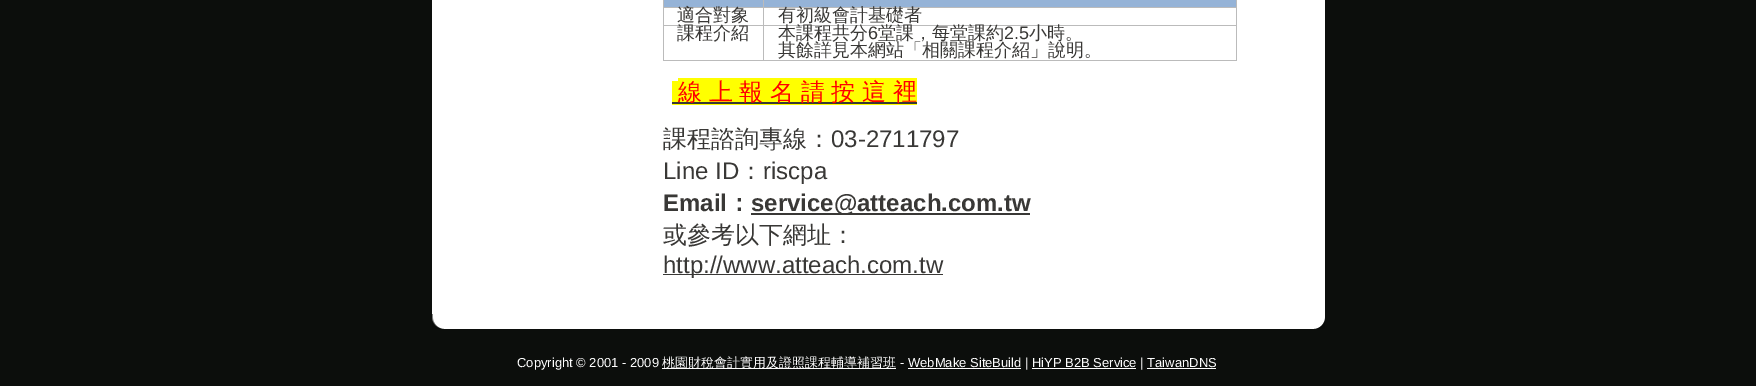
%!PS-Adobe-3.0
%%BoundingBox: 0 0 1756 386
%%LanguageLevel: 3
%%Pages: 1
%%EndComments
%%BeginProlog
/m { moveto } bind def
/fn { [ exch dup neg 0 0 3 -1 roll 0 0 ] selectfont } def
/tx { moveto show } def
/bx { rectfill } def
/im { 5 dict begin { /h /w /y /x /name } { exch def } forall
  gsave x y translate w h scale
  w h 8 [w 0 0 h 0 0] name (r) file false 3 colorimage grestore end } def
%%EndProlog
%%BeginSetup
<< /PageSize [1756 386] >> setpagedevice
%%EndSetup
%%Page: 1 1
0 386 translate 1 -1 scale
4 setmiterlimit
0.047 0.055 0.047 setrgbcolor
0 0 1756 386 bx
1 setgray
432 0 15 314 bx
447 0 878 314 bx
0.733 setgray
1236 0 1 61 bx
663 60 574 1 bx
0.584 0.702 0.843 setrgbcolor
663 0 573 7 bx
0.733 setgray
663 0 1 61 bx
763 7 474 1 bx
763 25 474 1 bx
763 25 1 36 bx
663 25 101 1 bx
763 7 1 19 bx
663 7 101 1 bx
763 0 1 8 bx
/WenQuanYiZenHei-Medium 18 fn
0.224 0.22 0.212 setrgbcolor
(適合對象) 677 21 tx
(有初級會計基礎者) 778 21 tx
(課程介紹) 677 39 tx
(本課程共分) 778 39 tx
/LiberationSans-Regular 18 fn
(6) 868 39 tx
/WenQuanYiZenHei-Medium 18 fn
(堂課，每堂課約) 878 39 tx
/LiberationSans-Regular 18 fn
(2.5) 1004 39 tx
/WenQuanYiZenHei-Medium 18 fn
(小時。) 1029 39 tx
(其餘詳見本網站「相關課程介紹」說明。) 778 56 tx
1 1 0 setrgbcolor
672 81 6 24 bx
0.224 0.22 0.212 setrgbcolor
672 102 6 2 bx
1 1 0 setrgbcolor
678 78 239 27 bx
0.224 0.22 0.212 setrgbcolor
678 102 239 2 bx
/WenQuanYiZenHei-Medium 24 fn
1 0 0 setrgbcolor
678 100 m -0.5 0 32 (線 上 報 名 請 按 這 裡) widthshow
0.224 0.22 0.212 setrgbcolor
(課程諮詢專線：) 663 147 tx
/LiberationSans-Regular 24 fn
(03-2711797) 831 147 tx
(Line ID) 663 179 tx
/WenQuanYiZenHei-Medium 24 fn
(：) 739 179 tx
/LiberationSans-Regular 24 fn
(riscpa) 763 179 tx
/LiberationSans-Bold 24 fn
(Email) 663 211 tx
/WenQuanYiZenHei-Bold 24 fn
(：) 727 211 tx
751 213 279 2 bx
/LiberationSans-Bold 24 fn
(service@atteach.com.tw) 751 211 tx
/WenQuanYiZenHei-Medium 24 fn
(或參考以下網址：) 663 243 tx
663 274 280 1 bx
/LiberationSans-Regular 24 fn
(http://www.atteach.com.tw) 663 273 tx
(image0.raw) 432 314 16 15 im
(image1.raw) 1310 314 15 15 im
1 setgray
448 314 862 15 bx
/LiberationSans-Regular 13 fn
(Copyright © 2001 - 2009) 517 367 tx
662 368 234 1 bx
/WenQuanYiZenHei-Medium 13 fn
(桃園財稅會計實用及證照課程輔導補習班) 662 367 tx
/LiberationSans-Regular 13 fn
(- WebMake SiteBuild | HiYP B2B Service | TaiwanDNS) 900 367 tx
908 368 113 1 bx
1032 368 104 1 bx
1147 368 69 1 bx
showpage
%%EOF
